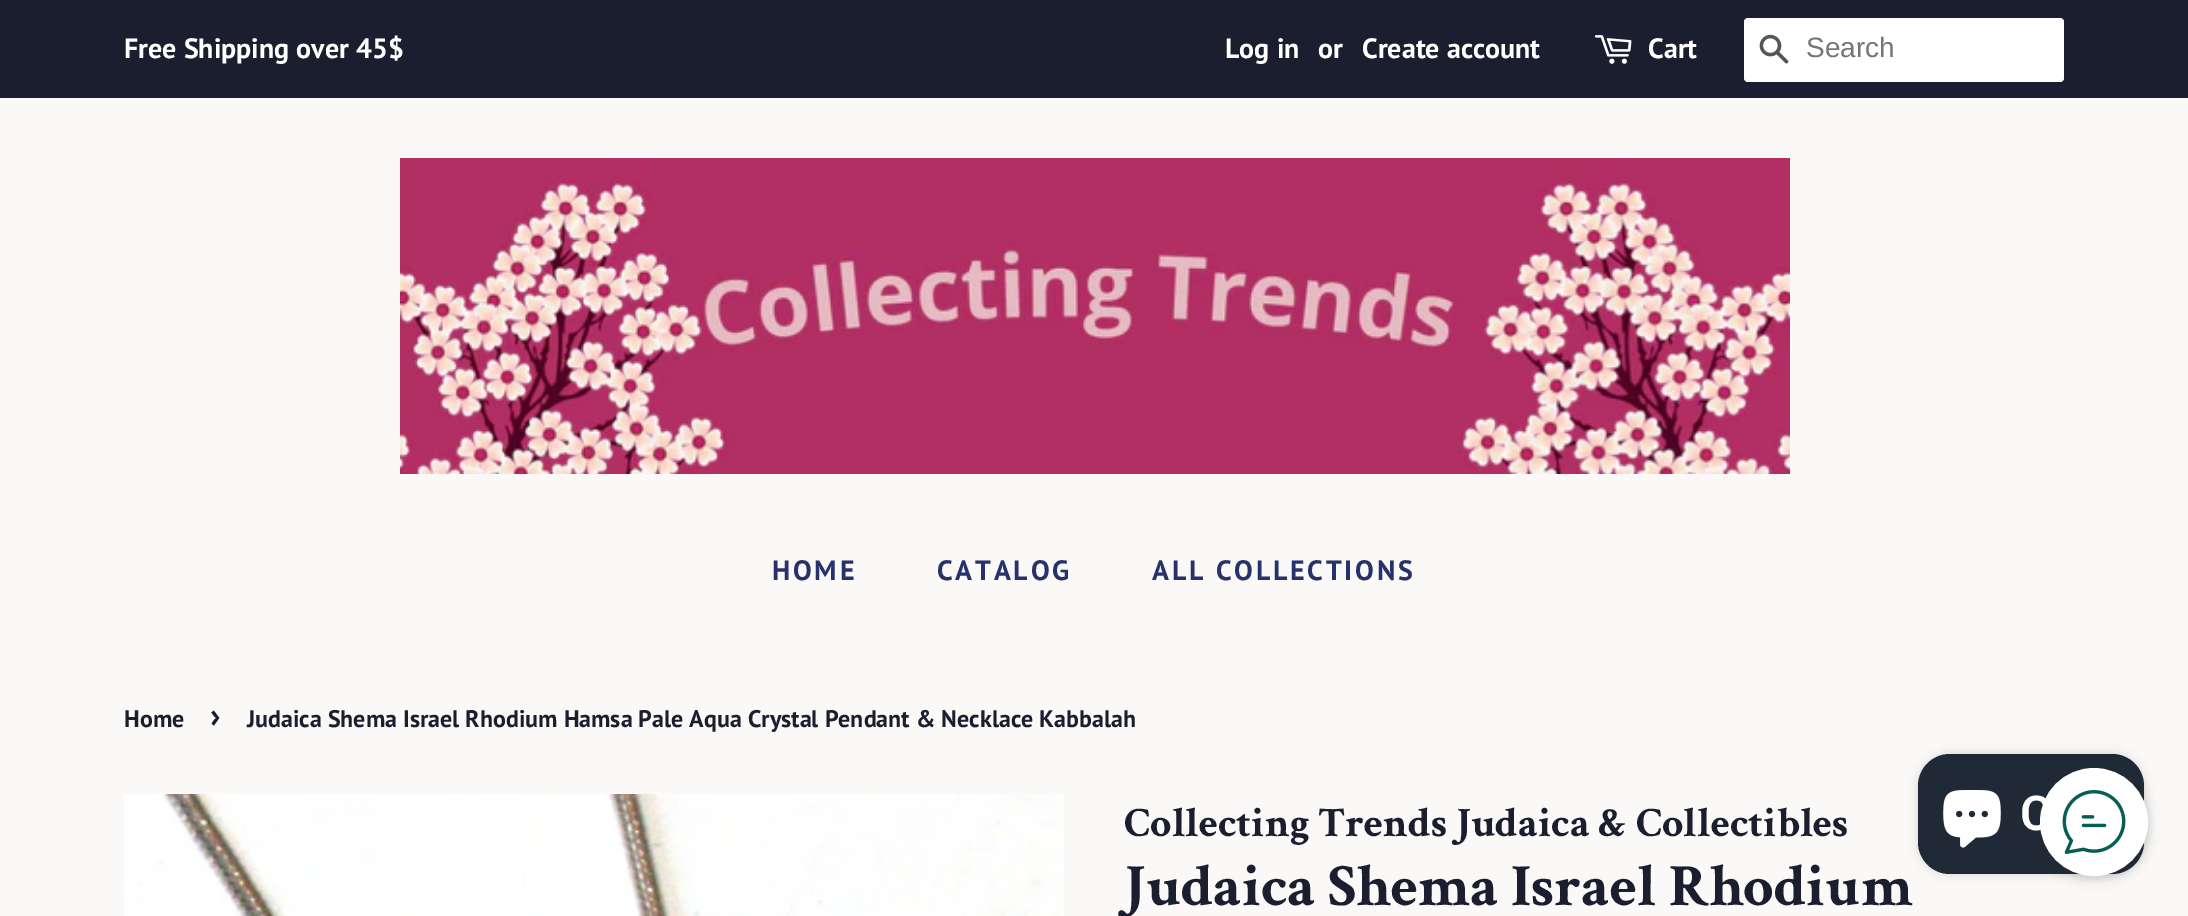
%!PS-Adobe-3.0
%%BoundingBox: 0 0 2188 916
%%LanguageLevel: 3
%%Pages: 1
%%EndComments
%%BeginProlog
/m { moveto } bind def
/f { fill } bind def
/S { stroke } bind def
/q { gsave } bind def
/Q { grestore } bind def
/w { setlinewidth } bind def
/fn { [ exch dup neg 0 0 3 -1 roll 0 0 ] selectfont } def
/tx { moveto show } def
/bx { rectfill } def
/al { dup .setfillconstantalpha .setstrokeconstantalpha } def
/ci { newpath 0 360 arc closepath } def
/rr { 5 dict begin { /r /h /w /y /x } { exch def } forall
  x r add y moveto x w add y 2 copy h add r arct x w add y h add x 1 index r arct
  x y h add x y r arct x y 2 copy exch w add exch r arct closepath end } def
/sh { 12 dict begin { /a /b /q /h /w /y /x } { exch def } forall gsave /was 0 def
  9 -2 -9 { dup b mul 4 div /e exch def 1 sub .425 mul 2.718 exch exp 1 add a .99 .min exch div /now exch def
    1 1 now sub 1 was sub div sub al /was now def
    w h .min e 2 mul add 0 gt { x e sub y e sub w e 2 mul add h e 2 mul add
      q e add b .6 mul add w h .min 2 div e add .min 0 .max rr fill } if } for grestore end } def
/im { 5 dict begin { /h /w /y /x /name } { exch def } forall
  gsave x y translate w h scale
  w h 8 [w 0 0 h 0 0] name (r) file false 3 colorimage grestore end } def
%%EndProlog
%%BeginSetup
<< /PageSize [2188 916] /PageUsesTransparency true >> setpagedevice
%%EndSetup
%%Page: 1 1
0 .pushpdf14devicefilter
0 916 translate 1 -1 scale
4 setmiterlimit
0.98 0.976 0.969 setrgbcolor
0 0 2188 916 bx
0.106 0.118 0.184 setrgbcolor
0 0 2188 98 bx
/PTSans-Bold 28 fn
1 setgray
(Free Shipping over 45$) 124 58 tx
(Log in) 1225 58 tx
(or) 1318 58 tx
(Create account) 1362 58 tx
(image0.raw) 1594 35 38 29 im
(Cart) 1648 58 tx
1744 18 320 64 4 rr f
(image1.raw) 1759 34 30 30 im
/LiberationSans-Regular 28 fn
0.459 setgray
(Search) 1806 57 tx
(image2.raw) 400 158 1390 316 im
/PTSans-Bold 28 fn
0.153 0.196 0.424 setrgbcolor
772 580 m 2.75 0 (HOME) ashow
937 580 m 2.75 0 (CATALOG) ashow
1152 580 m 2.75 0 (ALL COLLECTIONS) ashow
/PTSans-Bold 24 fn
0.106 0.118 0.184 setrgbcolor
(Home) 124 727 tx
/PTSans-Bold 34 fn
(›) 210 727 tx
/PTSans-Bold 24 fn
(Judaica Shema Israel Rhodium Hamsa Pale Aqua Crystal Pendant & Necklace Kabbalah) 247 727 tx
(image3.raw) 124 794 940 122 im
/CrimsonText-Bold 42 fn
(Collecting Trends Judaica & Collectibles) 1124 836 tx
/CrimsonText-Bold 60 fn
(Judaica Shema Israel Rhodium) 1124 905 tx
0 setgray
1918 754 226 120 32 5 0.15 sh
0.125 0.165 0.212 setrgbcolor
1918 754 226 120 32 rr f
0.106 setgray
2040 770 108 108 54 6 0.2 sh
1 setgray
2094 822 53 ci q f Q
2 w
S
(image4.raw) 2062 790 64 64 im
(image5.raw) 1943 790 58 58 im
/Roboto-SemiBold 48 fn
(C) 2020 830 tx
.poppdf14devicefilter showpage
%%EOF
